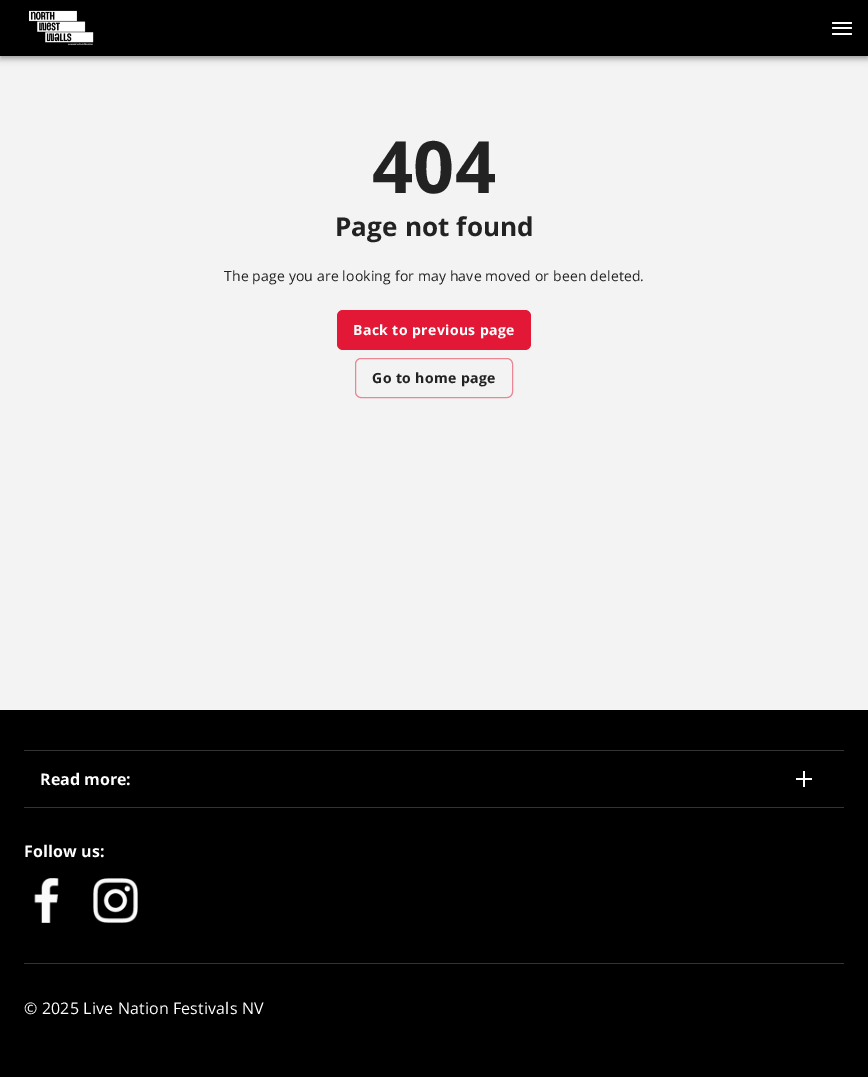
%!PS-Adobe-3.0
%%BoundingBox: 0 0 868 1077
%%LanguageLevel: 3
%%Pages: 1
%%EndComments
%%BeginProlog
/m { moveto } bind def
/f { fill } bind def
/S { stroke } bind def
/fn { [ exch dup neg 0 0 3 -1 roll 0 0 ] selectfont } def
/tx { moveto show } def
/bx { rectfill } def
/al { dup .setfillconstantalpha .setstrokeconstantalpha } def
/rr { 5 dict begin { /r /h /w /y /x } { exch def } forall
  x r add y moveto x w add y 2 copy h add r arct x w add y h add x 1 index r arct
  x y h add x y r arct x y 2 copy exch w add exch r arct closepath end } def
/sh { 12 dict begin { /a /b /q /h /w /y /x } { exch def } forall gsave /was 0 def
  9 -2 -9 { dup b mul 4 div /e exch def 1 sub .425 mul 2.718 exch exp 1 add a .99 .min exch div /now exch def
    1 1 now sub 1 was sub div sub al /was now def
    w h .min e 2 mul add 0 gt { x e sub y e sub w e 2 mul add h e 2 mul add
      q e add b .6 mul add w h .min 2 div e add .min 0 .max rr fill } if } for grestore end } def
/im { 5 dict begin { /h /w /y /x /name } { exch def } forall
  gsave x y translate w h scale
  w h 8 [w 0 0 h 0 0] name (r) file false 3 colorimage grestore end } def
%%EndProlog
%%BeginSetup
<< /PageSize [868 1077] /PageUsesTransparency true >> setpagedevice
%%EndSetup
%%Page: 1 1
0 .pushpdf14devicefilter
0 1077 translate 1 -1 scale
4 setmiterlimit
0.953 setgray
0 0 868 1077 bx
0 setgray
0 1 868 56 0 5 0.12 sh
0 4 868 56 0 2.5 0.14 sh
1 3 866 54 0 2 0.2 sh
0 0 868 56 bx
(image0.raw) 29 10 65 36 im
1 setgray
832 22 20 2 1 rr f
832 27 20 2 1 rr f
832 33 20 2 1 rr f
/OpenSans-Bold 72 fn
0.133 setgray
372 193 m 0.15 0 (404) ashow
/OpenSans-Bold 26 fn
335 236 m 0.15 0 (Page not found) ashow
/OpenSans-Regular 14 fn
224 281 m 0.15 0 (The page you are looking for may have moved or been deleted.) ashow
0.886 0.094 0.212 setrgbcolor
337 310 194 40 6 rr f
/OpenSans-Bold 14 fn
1 setgray
353 335 m 0.4 0 (Back to previous page) ashow
0.922 0.525 0.584 setrgbcolor
355.5 358.5 157 39 5.5 rr S
0.133 setgray
372 383 m 0.4 0 (Go to home page) ashow
0 setgray
0 710 868 367 bx
0.2 setgray
24 750 820 1 bx
24 807 820 1 bx
/OpenSans-Bold 16 fn
1 setgray
(Read more:) 40 785 tx
796 778 16 2 bx
803 771 2 16 bx
24 857 m 0.15 0 (Follow us:) ashow
(image1.raw) 34 878 25 45 im
(image2.raw) 93 878 45 45 im
0.2 setgray
24 963 820 1 bx
/OpenSans-Regular 16 fn
1 setgray
24 1014 m 0.15 0 (© 2025 Live Nation Festivals NV) ashow
.poppdf14devicefilter showpage
%%EOF
